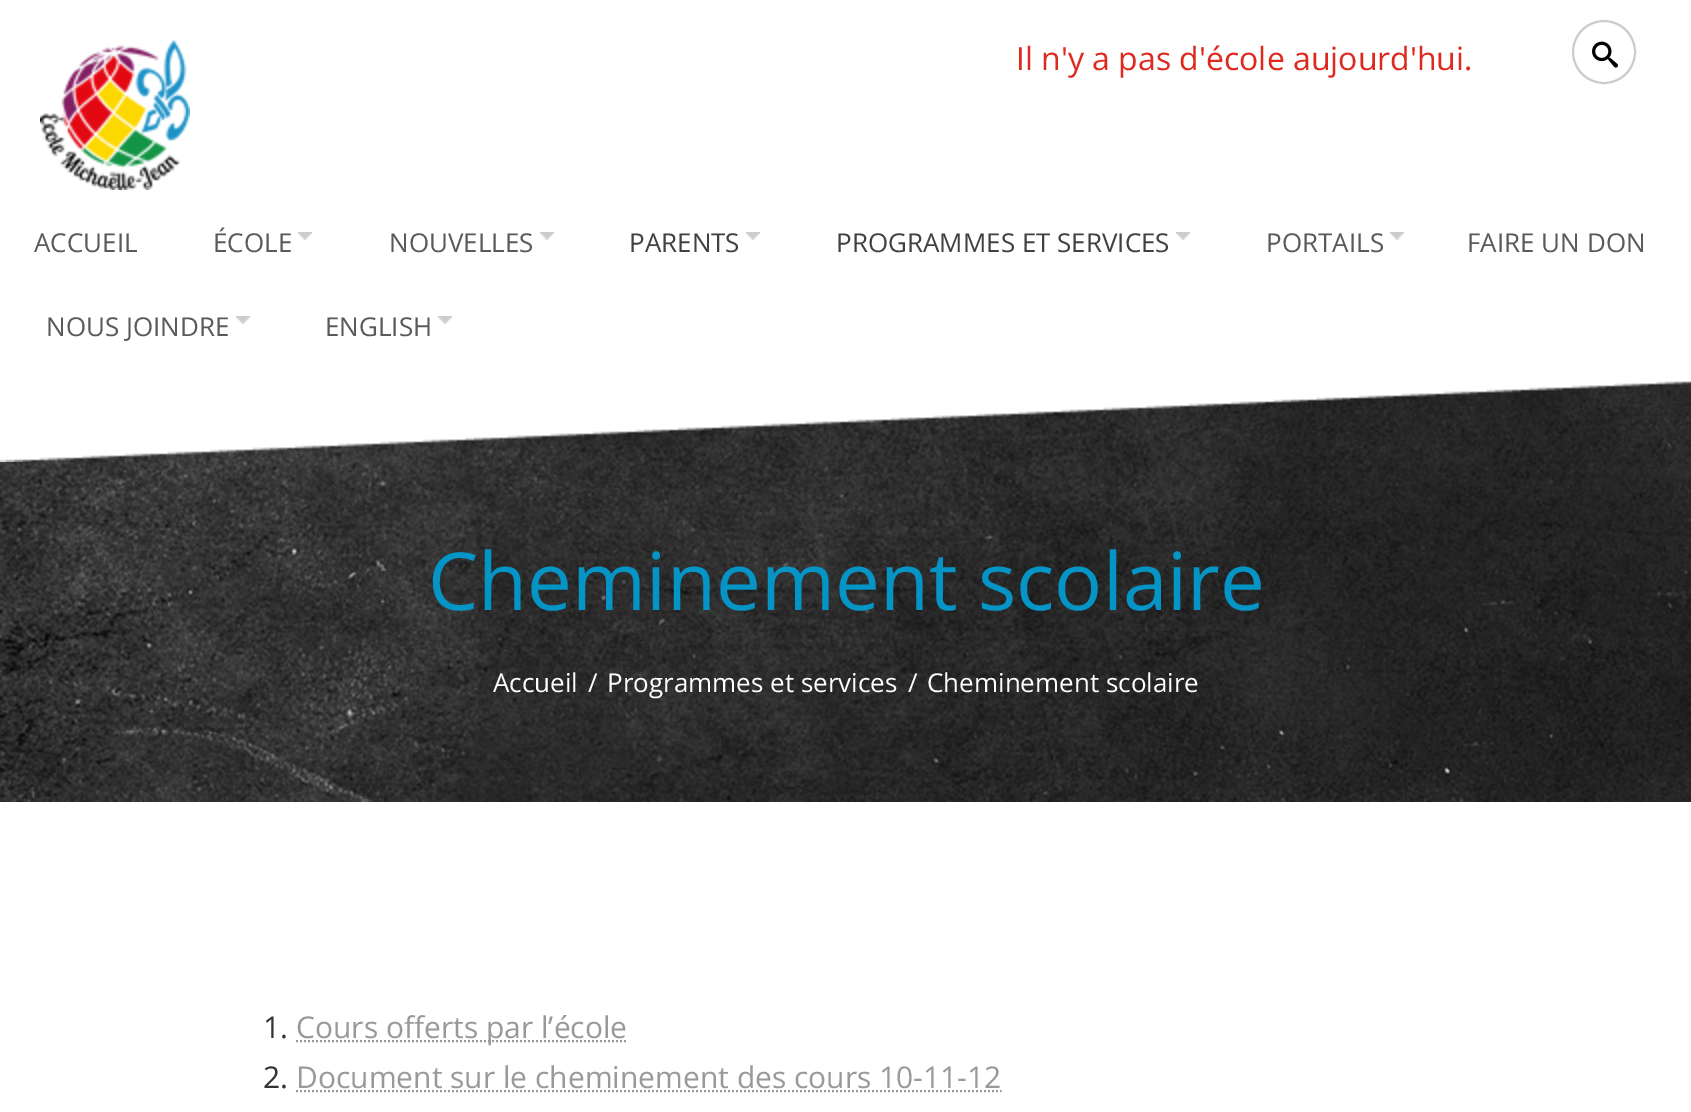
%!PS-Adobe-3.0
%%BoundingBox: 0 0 1691 1112
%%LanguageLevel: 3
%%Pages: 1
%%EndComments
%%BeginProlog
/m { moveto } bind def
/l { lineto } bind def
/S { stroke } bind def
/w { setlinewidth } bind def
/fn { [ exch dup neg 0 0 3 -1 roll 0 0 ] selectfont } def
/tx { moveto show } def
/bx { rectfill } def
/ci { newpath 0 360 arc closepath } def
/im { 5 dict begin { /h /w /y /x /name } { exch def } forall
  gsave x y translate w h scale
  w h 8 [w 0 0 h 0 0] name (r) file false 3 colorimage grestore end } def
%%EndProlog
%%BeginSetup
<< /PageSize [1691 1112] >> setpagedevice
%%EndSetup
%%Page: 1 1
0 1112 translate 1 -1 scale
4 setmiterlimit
1 setgray
0 0 1691 1112 bx
(image0.raw) 40 40 150 150 im
/OpenSans-Regular 32 fn
0.867 0.161 0.118 setrgbcolor
(Il n'y a pas d'école aujourd'hui.) 1016 70 tx
0.8 setgray
2 w
1604 52 31 ci S
(image1.raw) 1592 41 26 27 im
/OpenSans-Regular 26 fn
0.353 setgray
(ACCUEIL) 34 252 tx
(image2.raw) 298 232 14 8 im
(ÉCOLE) 213 252 tx
(image2.raw) 540 232 14 8 im
(NOUVELLES) 389 252 tx
(image2.raw) 746 232 14 8 im
0.255 setgray
(PARENTS) 629 252 tx
(image2.raw) 1176 232 14 8 im
(PROGRAMMES ET SERVICES) 836 252 tx
(image2.raw) 1390 232 14 8 im
0.353 setgray
(PORTAILS) 1266 252 tx
(FAIRE UN DON) 1467 252 tx
(image2.raw) 236 316 14 8 im
(NOUS JOINDRE) 46 336 tx
(image2.raw) 438 316 14 8 im
(ENGLISH) 325 336 tx
(image4.raw) 0 381 1691 421 im
(image3.raw) 0 378 1691 84 im
/OpenSans-Regular 80 fn
0.02 0.58 0.776 setrgbcolor
(Cheminement scolaire) 428 610 tx
/OpenSans-Regular 26 fn
1 setgray
(Accueil) 493 692 tx
(/) 588 692 tx
(Programmes et services) 607 692 tx
(/) 908 692 tx
(Cheminement scolaire) 927 692 tx
/OpenSans-Regular 30 fn
0.2 setgray
(1.) 263 1038 tx
0.6 setgray
[2 2] 0 setdash
296 1041 m 627 1041 l S
(Cours offerts par l’école) 296 1038 tx
0.2 setgray
(2.) 263 1088 tx
0.6 setgray
(Document sur le cheminement des cours 10-11-12) 296 1088 tx
296 1091 m 1001.5 1091 l S
showpage
%%EOF
